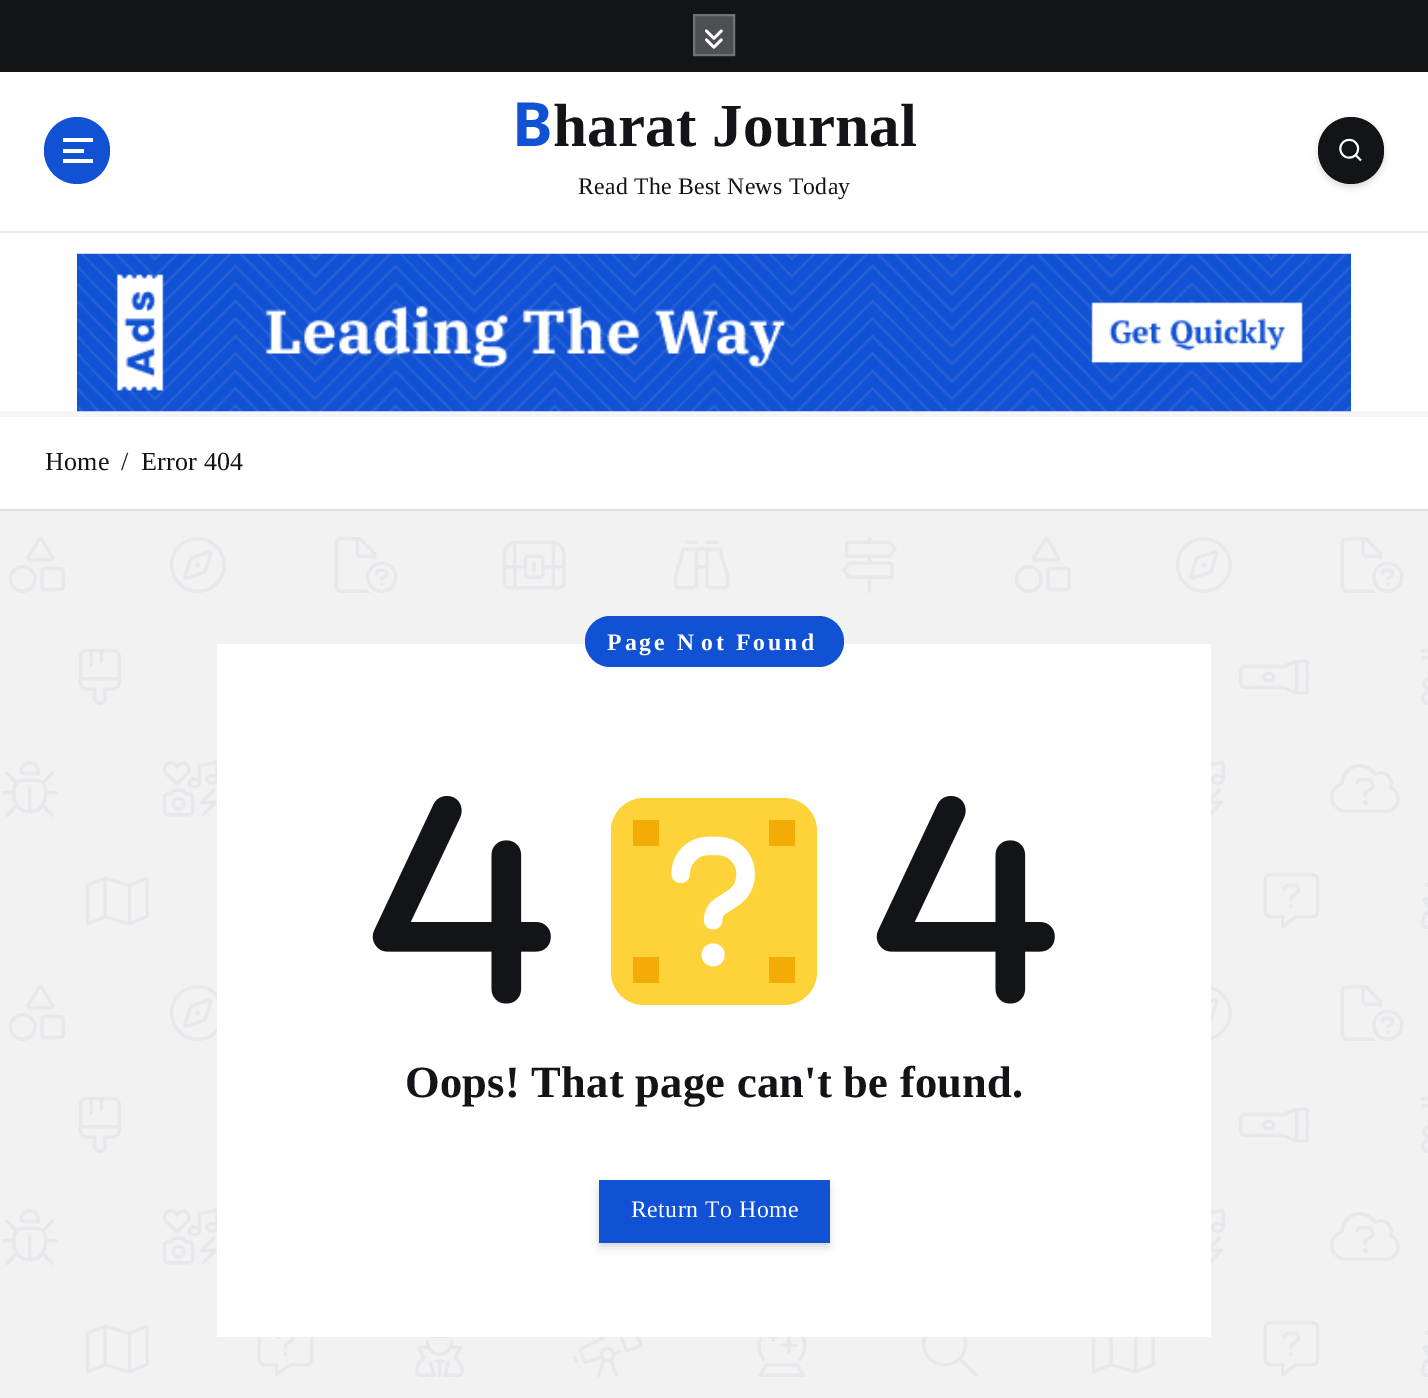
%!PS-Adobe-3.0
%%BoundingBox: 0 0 1428 1398
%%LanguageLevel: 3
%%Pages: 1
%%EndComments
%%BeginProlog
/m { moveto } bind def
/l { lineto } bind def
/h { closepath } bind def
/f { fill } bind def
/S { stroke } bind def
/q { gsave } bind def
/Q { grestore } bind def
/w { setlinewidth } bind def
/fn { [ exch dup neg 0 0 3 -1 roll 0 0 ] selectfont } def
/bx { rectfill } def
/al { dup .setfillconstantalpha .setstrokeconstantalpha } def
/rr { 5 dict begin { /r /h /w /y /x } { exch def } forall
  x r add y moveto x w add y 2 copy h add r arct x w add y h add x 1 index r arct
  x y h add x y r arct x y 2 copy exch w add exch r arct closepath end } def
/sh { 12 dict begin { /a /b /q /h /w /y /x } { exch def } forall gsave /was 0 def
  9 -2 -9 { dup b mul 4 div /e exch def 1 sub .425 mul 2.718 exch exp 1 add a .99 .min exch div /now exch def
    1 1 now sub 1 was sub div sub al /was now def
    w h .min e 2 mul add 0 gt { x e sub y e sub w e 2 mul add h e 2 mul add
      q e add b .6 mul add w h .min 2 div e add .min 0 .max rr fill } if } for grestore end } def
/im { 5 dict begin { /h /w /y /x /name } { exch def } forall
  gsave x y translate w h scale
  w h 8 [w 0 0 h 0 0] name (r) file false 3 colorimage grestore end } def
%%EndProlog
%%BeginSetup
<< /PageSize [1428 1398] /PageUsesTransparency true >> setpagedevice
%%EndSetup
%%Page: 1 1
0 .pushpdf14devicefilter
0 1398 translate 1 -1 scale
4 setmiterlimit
0.961 setgray
0 0 1428 1398 bx
1 setgray
0 72 1428 339 bx
0.071 0.078 0.094 setrgbcolor
0 0 1428 72 bx
0.302 0.31 0.322 setrgbcolor
694 15 m 734 15 l 734 55 l 694 55 l h q f Q
0.443 0.447 0.459 setrgbcolor
2 w
S
(image0.raw) 705 29 18 20 im
0.929 setgray
0 231 1428 2 bx
0.067 0.318 0.827 setrgbcolor
44 117 66 67 33 rr f
1 setgray
63 138 30 4 bx
63 149 21 4 bx
63 159 30 4 bx
/NotoSans-Bold 61 fn
0.067 0.318 0.827 setrgbcolor
512 146 m 0.25 0 (B) ashow
/LiberationSerif-Bold 61 fn
0.071 0.078 0.094 setrgbcolor
553 146 m 0.25 0 (harat Journal) ashow
/LiberationSerif-Regular 23.75 fn
578 194 m 0.25 0 (Read The Best News Today) ashow
0 setgray
1318 121 66 66 33 3.5 0.15 sh
0.071 0.078 0.094 setrgbcolor
1318 117 66 67 33 rr f
(image1.raw) 1339 138 23 24 im
(image2.raw) 77 253 1274 159 im
0.882 setgray
0 509 1428 2 bx
1 setgray
0 417 1428 92 bx
/LiberationSerif-Regular 26 fn
0.071 0.078 0.094 setrgbcolor
45 470 m 0.25 0 (Home) ashow
121 470 m 0.25 0 (/) ashow
141 470 m 0.25 0 (Error 404) ashow
0.949 setgray
0 511 1428 887 bx
(image3.raw) 2 537 1426 840 im
1 setgray
217 644 994 693 bx
0.067 0.318 0.827 setrgbcolor
585 616 259 51 25.5 rr f
/LiberationSerif-Bold 23.75 fn
1 setgray
607 650 m 3 0 (Page N) ashow
701 650 m 3 0 (ot Found) ashow
(image4.raw) 372 795 179 209 im
0.996 0.827 0.227 setrgbcolor
611 798 206 207 33 rr f
q 769 957 m 795 957 l 795 983 l 769 983 l h clip newpath 782 970 translate 13 13 scale
<< /ShadingType 3 /ColorSpace /DeviceRGB /Coords [0 0 0 0 0 1] /Extend [true true] /Function << /FunctionType 2 /Domain [0 1] /C0 [0.953 0.671 0.024] /C1 [0.953 0.671 0.024] /N 1 >> >> shfill Q
q 633 957 m 659 957 l 659 983 l 633 983 l h clip newpath 646 970 translate 13 13 scale
<< /ShadingType 3 /ColorSpace /DeviceRGB /Coords [0 0 0 0 0 1] /Extend [true true] /Function << /FunctionType 2 /Domain [0 1] /C0 [0.953 0.671 0.024] /C1 [0.953 0.671 0.024] /N 1 >> >> shfill Q
q 633 820 m 659 820 l 659 846 l 633 846 l h clip newpath 646 833 translate 13 13 scale
<< /ShadingType 3 /ColorSpace /DeviceRGB /Coords [0 0 0 0 0 1] /Extend [true true] /Function << /FunctionType 2 /Domain [0 1] /C0 [0.953 0.671 0.024] /C1 [0.953 0.671 0.024] /N 1 >> >> shfill Q
q 769 820 m 795 820 l 795 846 l 769 846 l h clip newpath 782 833 translate 13 13 scale
<< /ShadingType 3 /ColorSpace /DeviceRGB /Coords [0 0 0 0 0 1] /Extend [true true] /Function << /FunctionType 2 /Domain [0 1] /C0 [0.953 0.671 0.024] /C1 [0.953 0.671 0.024] /N 1 >> >> shfill Q
(image5.raw) 671 836 84 131 im
(image4.raw) 876 795 179 209 im
/LiberationSerif-Bold 44.5 fn
0.071 0.078 0.094 setrgbcolor
405 1097 m 0.25 0 (Oops! That page can't be found.) ashow
0.027 0.039 0.098 setrgbcolor
600 1187 228 59 0 4.5 0.2 sh
0.067 0.318 0.827 setrgbcolor
599 1180 231 63 bx
/LiberationSerif-Regular 23.75 fn
1 setgray
631 1217 m 0.5 0 (Return To Home) ashow
.poppdf14devicefilter showpage
%%EOF
